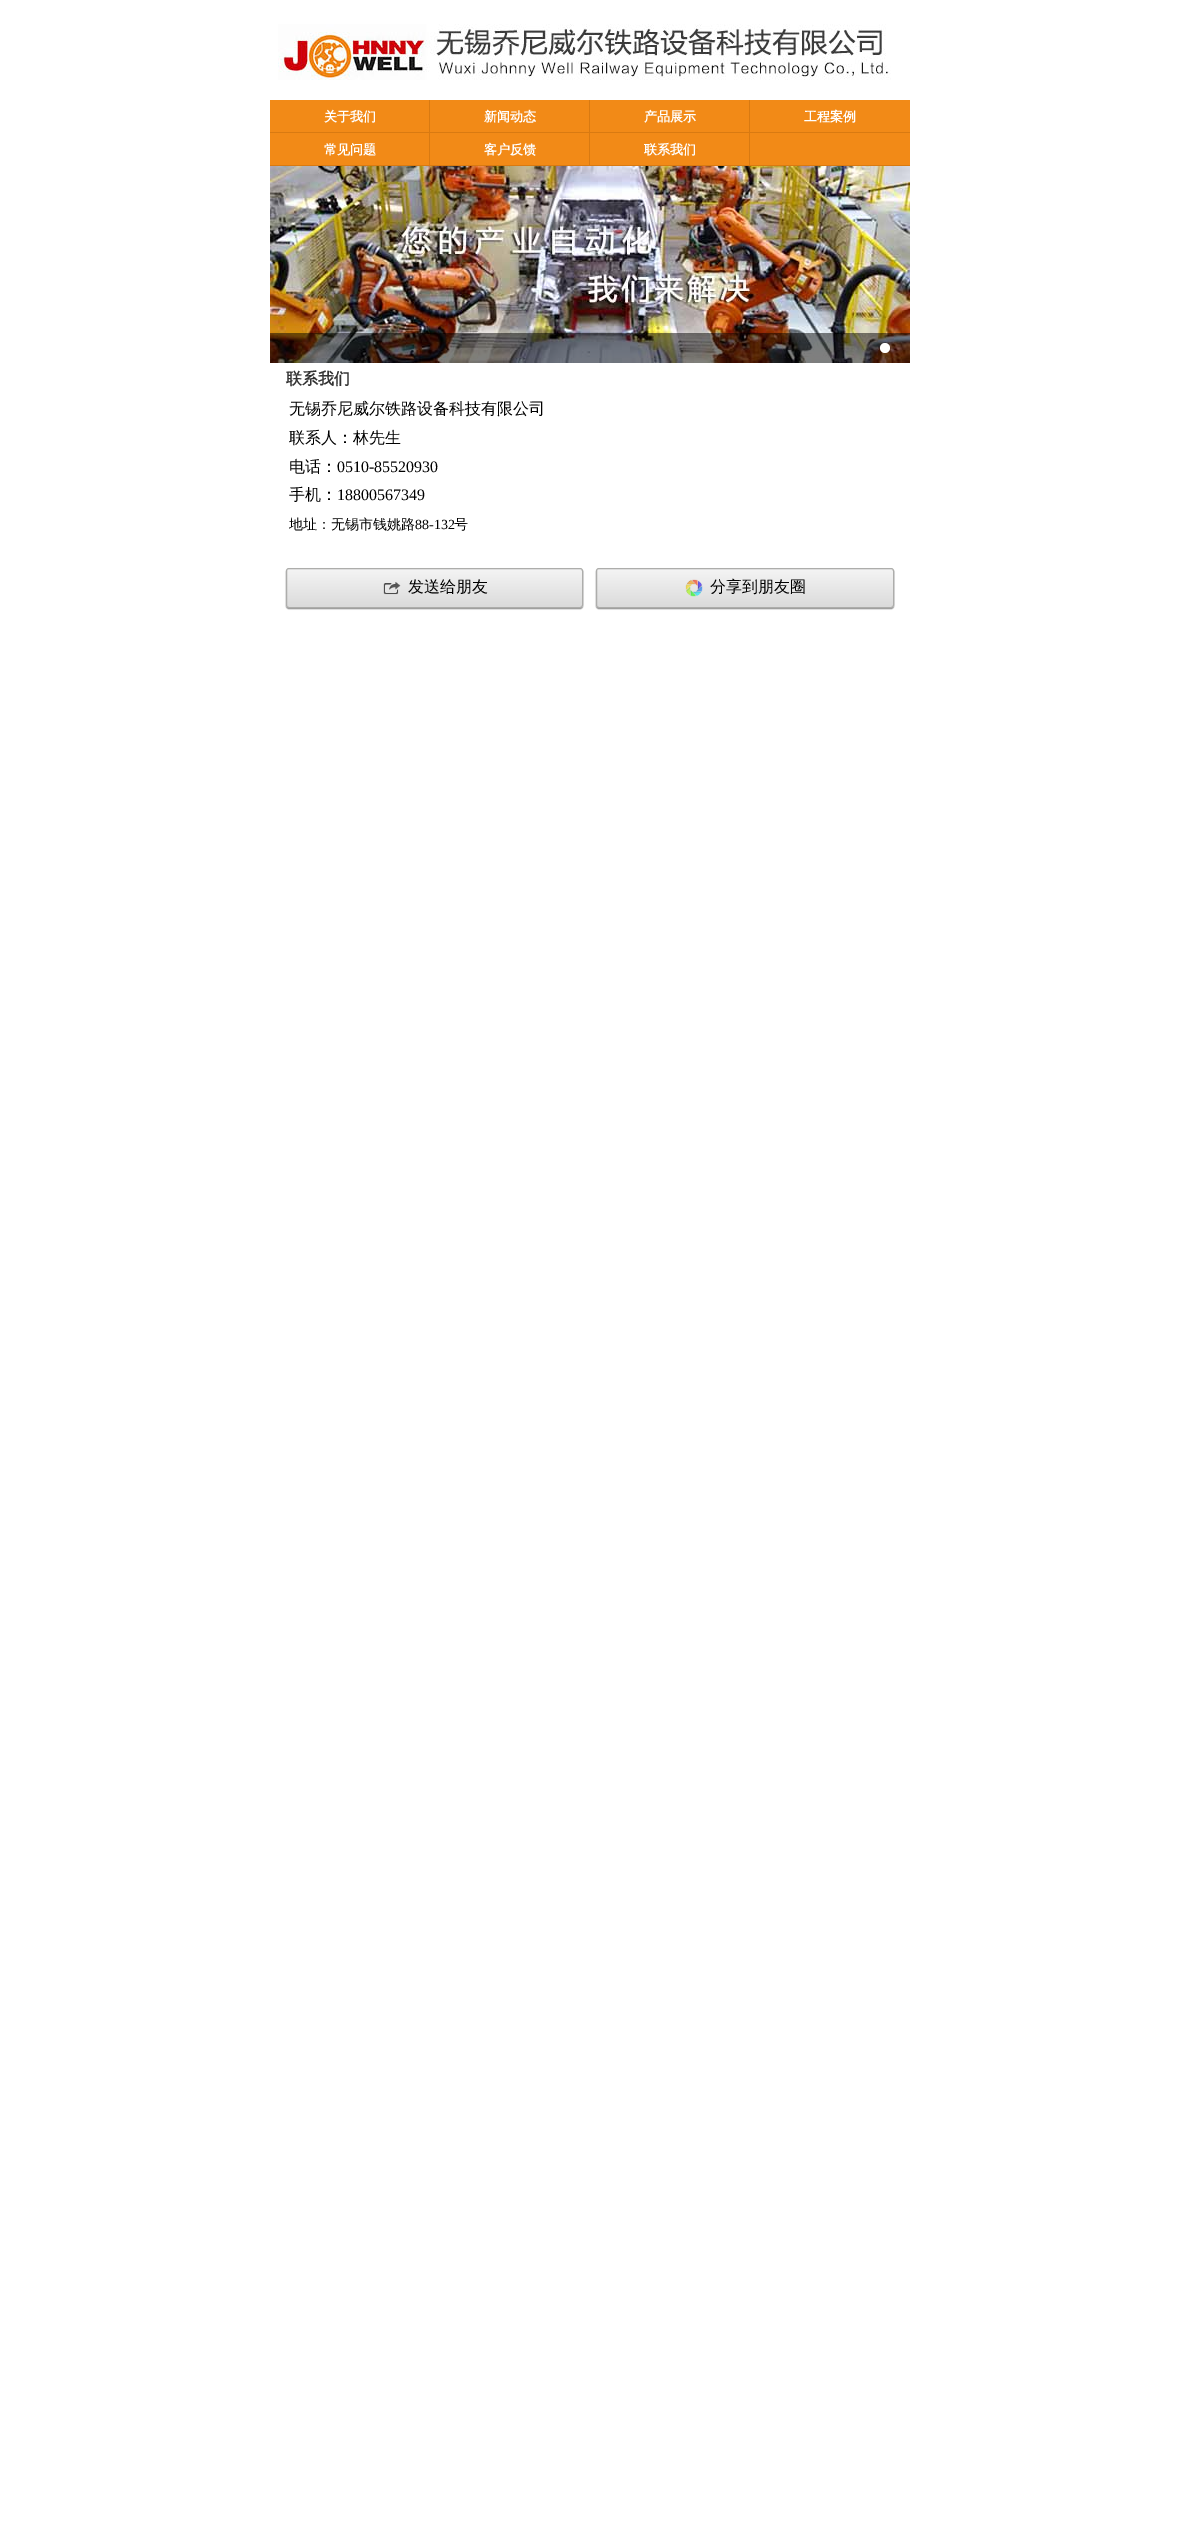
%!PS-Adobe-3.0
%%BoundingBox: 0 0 1179 2548
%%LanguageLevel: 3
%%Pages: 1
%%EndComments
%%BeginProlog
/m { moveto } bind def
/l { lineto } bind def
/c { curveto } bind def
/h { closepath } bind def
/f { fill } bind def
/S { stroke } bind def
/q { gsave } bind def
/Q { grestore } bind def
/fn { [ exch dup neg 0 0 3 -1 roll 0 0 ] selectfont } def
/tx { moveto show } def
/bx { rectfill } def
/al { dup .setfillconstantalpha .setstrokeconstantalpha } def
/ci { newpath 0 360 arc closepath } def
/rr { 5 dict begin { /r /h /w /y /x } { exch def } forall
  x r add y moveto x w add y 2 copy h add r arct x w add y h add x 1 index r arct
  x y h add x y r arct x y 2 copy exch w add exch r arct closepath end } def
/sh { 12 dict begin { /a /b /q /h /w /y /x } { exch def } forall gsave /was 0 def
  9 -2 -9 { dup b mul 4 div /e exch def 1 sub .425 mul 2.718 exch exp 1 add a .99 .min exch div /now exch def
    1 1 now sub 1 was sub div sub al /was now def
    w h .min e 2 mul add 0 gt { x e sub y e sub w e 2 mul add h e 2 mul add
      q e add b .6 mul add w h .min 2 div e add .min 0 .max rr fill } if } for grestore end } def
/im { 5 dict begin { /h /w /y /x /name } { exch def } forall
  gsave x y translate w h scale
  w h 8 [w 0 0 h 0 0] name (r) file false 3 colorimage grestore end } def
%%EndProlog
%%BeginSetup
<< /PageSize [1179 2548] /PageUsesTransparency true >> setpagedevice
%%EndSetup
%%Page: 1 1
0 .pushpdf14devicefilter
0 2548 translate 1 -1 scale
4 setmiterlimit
1 setgray
0 0 1179 2548 bx
(image0.raw) 278 24 613 56 im
0.949 0.541 0.09 setrgbcolor
270 100 640 32 bx
0.851 0.478 0.067 setrgbcolor
270 132 640 1 bx
429 100 1 32 bx
/WenQuanYiZenHei-Bold 13 fn
1 setgray
(关于我们) 324 121 tx
0.851 0.478 0.067 setrgbcolor
589 100 1 32 bx
1 setgray
(新闻动态) 484 121 tx
0.851 0.478 0.067 setrgbcolor
749 100 1 32 bx
1 setgray
(产品展示) 644 121 tx
(工程案例) 804 121 tx
0.949 0.541 0.09 setrgbcolor
270 133 640 32 bx
0.851 0.478 0.067 setrgbcolor
270 165 640 1 bx
429 133 1 32 bx
1 setgray
(常见问题) 324 154 tx
0.851 0.478 0.067 setrgbcolor
589 133 1 32 bx
1 setgray
(客户反馈) 484 154 tx
0.851 0.478 0.067 setrgbcolor
749 133 1 32 bx
1 setgray
(联系我们) 644 154 tx
(image1.raw) 270 166 640 197 im
0.5 al
0 setgray
270 333 640 30 bx
1 al
1 setgray
885 348 5 ci f
/WenQuanYiZenHei-Bold 16 fn
0.2 setgray
(联系我们) 286 384 tx
/WenQuanYiZenHei-Medium 16 fn
0 setgray
(无锡乔尼威尔铁路设备科技有限公司) 289 414 tx
(联系人：林先生) 289 443 tx
(电话：) 289 472 tx
/LiberationSerif-Regular 16 fn
(0510-85520930) 337 472 tx
/WenQuanYiZenHei-Medium 16 fn
(手机：) 289 500 tx
/LiberationSerif-Regular 16 fn
(18800567349) 337 500 tx
/WenQuanYiZenHei-Medium 14 fn
(地址：无锡市钱姚路) 289 529 tx
/LiberationSerif-Regular 14 fn
(88-132) 415 529 tx
/WenQuanYiZenHei-Medium 14 fn
(号) 454 529 tx
286 569 297 40 3 0.5 0.45 sh
q
286 568 297 40 3 rr clip newpath
q 286 569 m 583 569 l 583 607 l 286 607 l h clip newpath
<< /ShadingType 2 /ColorSpace /DeviceRGB /Coords [435 607 435 569] /Extend [true true] /Function << /FunctionType 2 /Domain [0 1] /C0 [0.859 0.859 0.859] /C1 [0.957 0.957 0.957] /N 1 >> >> shfill Q
Q
0.937 setgray
289 570 m 580 570 l 581 570 582 571 582 572 c 582 571 582 569 580 569 c 288 569 l 287 572 l 287 571 288 570 289 570 c h f
0.678 0.678 0.671 setrgbcolor
286.5 568.5 296 39 2.5 rr S
(image2.raw) 383 582 18 13 im
/WenQuanYiZenHei-Medium 16 fn
0 setgray
(发送给朋友) 408 592 tx
596 569 298 40 3 0.5 0.45 sh
q
596 568 298 40 3 rr clip newpath
q 596 569 m 894 569 l 894 607 l 596 607 l h clip newpath
<< /ShadingType 2 /ColorSpace /DeviceRGB /Coords [745 607 745 569] /Extend [true true] /Function << /FunctionType 2 /Domain [0 1] /C0 [0.859 0.859 0.859] /C1 [0.957 0.957 0.957] /N 1 >> >> shfill Q
Q
0.937 setgray
599 570 m 891 570 l 892 570 893 571 893 572 c 893 571 893 569 891 569 c 598 569 l 597 572 l 597 571 598 570 599 570 c h f
0.678 0.678 0.671 setrgbcolor
596.5 568.5 297 39 2.5 rr S
(image3.raw) 685 579 18 18 im
0 setgray
(分享到朋友圈) 710 592 tx
.poppdf14devicefilter showpage
%%EOF
